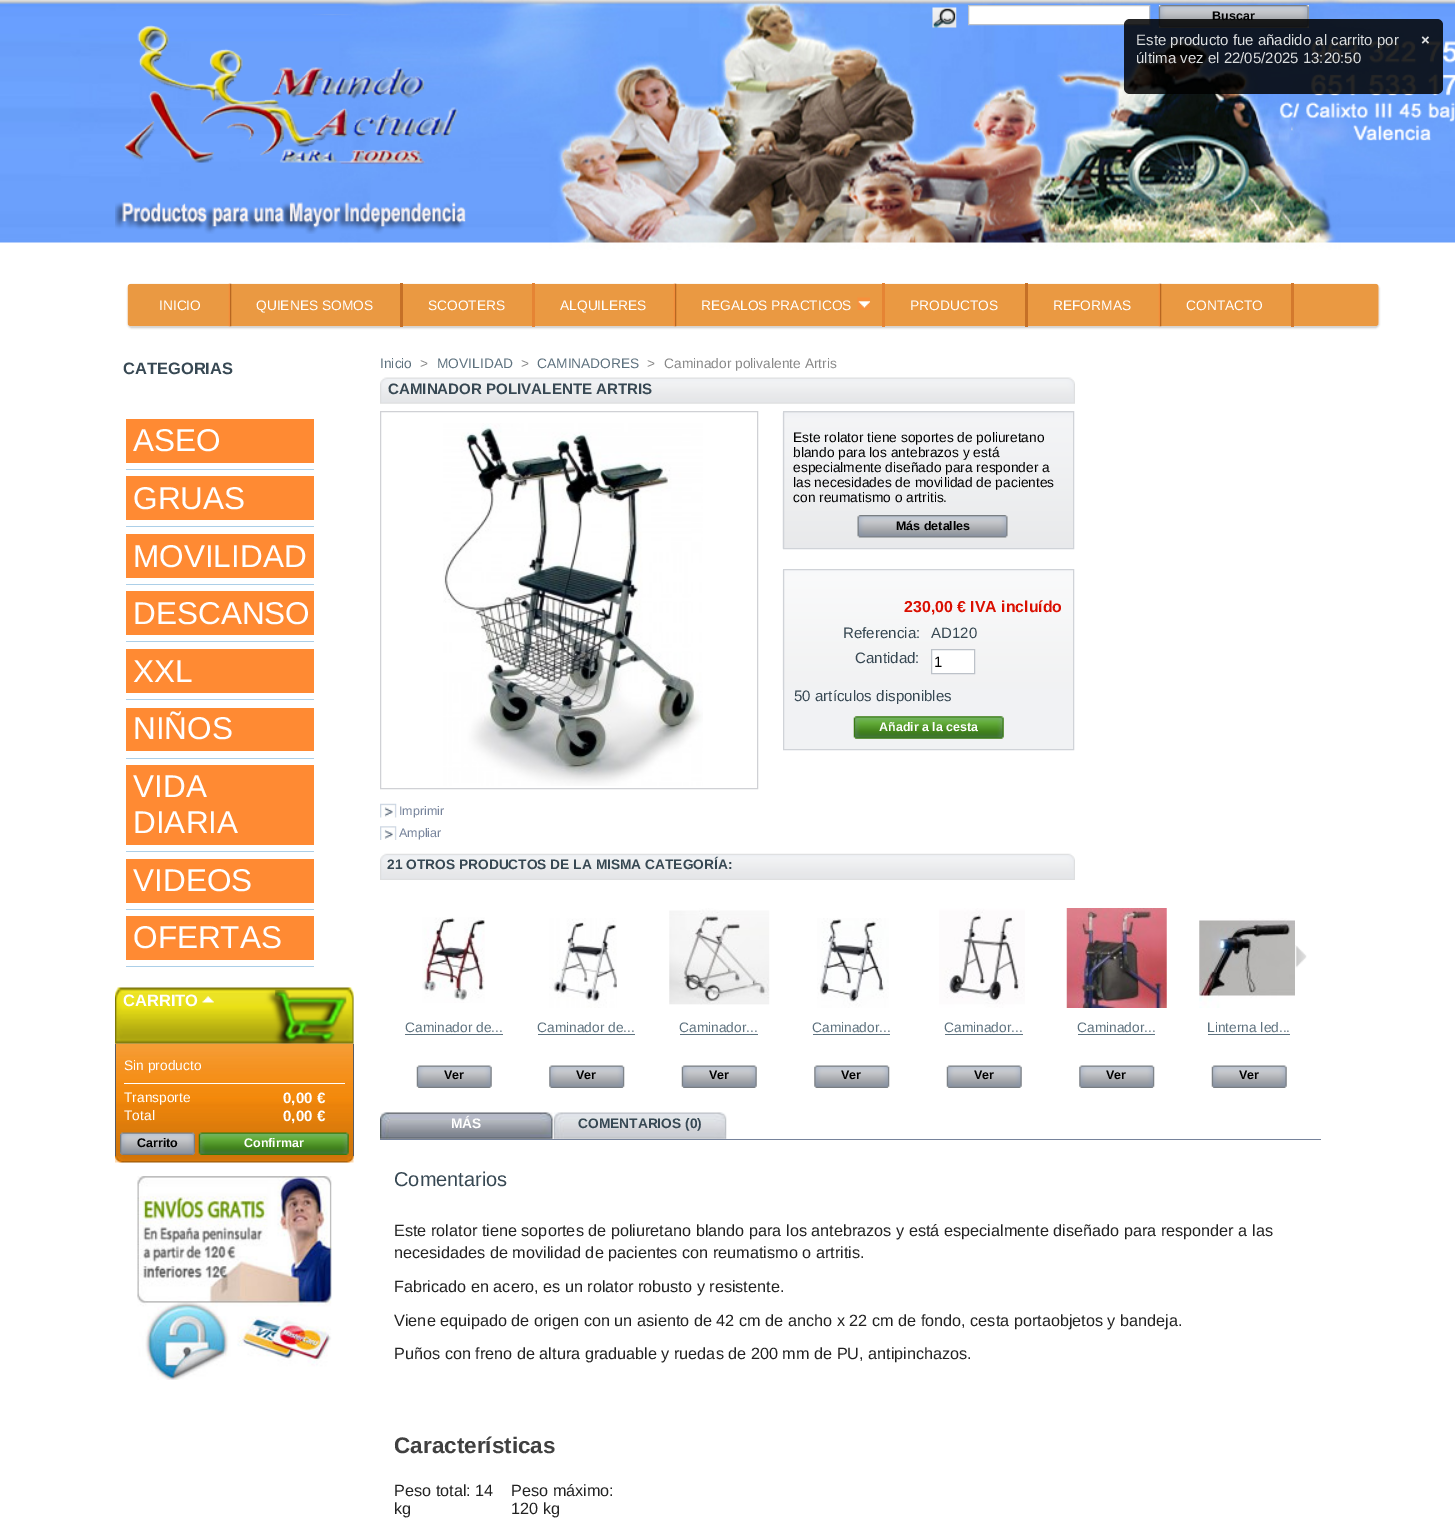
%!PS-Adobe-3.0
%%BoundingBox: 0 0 1455 1523
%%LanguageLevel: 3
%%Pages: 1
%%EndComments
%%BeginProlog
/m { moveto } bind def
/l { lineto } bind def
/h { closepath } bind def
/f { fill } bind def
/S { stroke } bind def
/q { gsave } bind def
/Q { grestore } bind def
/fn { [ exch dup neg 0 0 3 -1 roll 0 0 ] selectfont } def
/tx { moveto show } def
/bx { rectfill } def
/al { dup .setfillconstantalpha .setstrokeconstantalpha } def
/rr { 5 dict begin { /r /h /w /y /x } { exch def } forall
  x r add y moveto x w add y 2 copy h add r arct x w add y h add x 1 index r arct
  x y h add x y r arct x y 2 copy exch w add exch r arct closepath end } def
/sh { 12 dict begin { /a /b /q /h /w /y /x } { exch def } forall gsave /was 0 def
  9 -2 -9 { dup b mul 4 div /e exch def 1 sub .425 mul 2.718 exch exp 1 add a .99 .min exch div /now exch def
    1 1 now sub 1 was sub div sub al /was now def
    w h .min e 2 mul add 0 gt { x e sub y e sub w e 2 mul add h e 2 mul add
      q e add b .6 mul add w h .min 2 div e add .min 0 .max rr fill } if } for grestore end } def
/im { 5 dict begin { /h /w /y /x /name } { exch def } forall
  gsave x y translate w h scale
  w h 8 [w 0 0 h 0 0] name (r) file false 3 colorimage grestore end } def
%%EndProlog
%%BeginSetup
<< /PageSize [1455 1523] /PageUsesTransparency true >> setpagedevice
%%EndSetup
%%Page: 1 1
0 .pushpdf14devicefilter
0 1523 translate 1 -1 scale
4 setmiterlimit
1 setgray
0 0 1455 1523 bx
(image0.raw) 0 0 1455 250 im
(image1.raw) 115 14 351 220 im
(image2.raw) 932 7 25 21 im
968.5 5.5 m 1149.5 5.5 l 1149.5 24.5 l 968.5 24.5 l h q f Q
0.741 0.761 0.788 setrgbcolor
S
0.937 setgray
1159 5 150 23 bx
(image3.raw) 1158 5 151 23 im
/LiberationSans-Bold 12.5 fn
0 setgray
(Buscar) 1212 20 tx
0.776 setgray
128 285 1251 43 4 1 1 sh
(image4.raw) 127 283 1252 44 im
(image5.raw) 228 283 4 44 im
/LiberationSans-Regular 13.75 fn
1 setgray
(INICIO) 159 310 tx
0.773 0.439 0.153 setrgbcolor
400 283 3 44 bx
1 setgray
(QUIENES SOMOS) 256 310 tx
0.898 0.518 0.204 setrgbcolor
532 283 3 44 bx
1 setgray
(SCOOTERS) 428 310 tx
(image5.raw) 673 283 4 44 im
(ALQUILERES) 560 310 tx
0.898 0.518 0.204 setrgbcolor
882 283 3 44 bx
1 setgray
(REGALOS PRACTICOS) 701 310 tx
(image6.raw) 857 297 13 13 im
0.773 0.439 0.153 setrgbcolor
1025 283 3 44 bx
1 setgray
(PRODUCTOS) 910 310 tx
(image5.raw) 1158 283 4 44 im
(REFORMAS) 1053 310 tx
0.827 0.475 0.176 setrgbcolor
1291 283 3 44 bx
1 setgray
(CONTACTO) 1186 310 tx
/LiberationSans-Bold 16.5 fn
0.216 0.282 0.325 setrgbcolor
(CATEGORIAS) 123 374 tx
0.675 0.812 0.91 setrgbcolor
126 469 188 1 bx
1 0.541 0.2 setrgbcolor
126 419 188 44 bx
/LiberationSans-Regular 31.5 fn
1 setgray
(ASEO) 133 451 tx
0.675 0.812 0.91 setrgbcolor
126 526 188 1 bx
1 0.541 0.2 setrgbcolor
126 476 188 44 bx
1 setgray
(GRUAS) 133 509 tx
0.675 0.812 0.91 setrgbcolor
126 584 188 1 bx
1 0.541 0.2 setrgbcolor
126 534 188 44 bx
1 setgray
(MOVILIDAD) 133 567 tx
0.675 0.812 0.91 setrgbcolor
126 641 188 1 bx
1 0.541 0.2 setrgbcolor
126 591 188 44 bx
1 setgray
(DESCANSO) 133 624 tx
0.675 0.812 0.91 setrgbcolor
126 699 188 1 bx
1 0.541 0.2 setrgbcolor
126 649 188 44 bx
1 setgray
(XXL) 133 682 tx
0.675 0.812 0.91 setrgbcolor
126 758 188 1 bx
1 0.541 0.2 setrgbcolor
126 708 188 43 bx
1 setgray
(NIÑOS) 133 739 tx
0.675 0.812 0.91 setrgbcolor
126 851 188 1 bx
1 0.541 0.2 setrgbcolor
126 765 188 80 bx
1 setgray
(VIDA) 133 797 tx
(DIARIA) 133 833 tx
0.675 0.812 0.91 setrgbcolor
126 909 188 1 bx
1 0.541 0.2 setrgbcolor
126 859 188 44 bx
1 setgray
(VIDEOS) 133 891 tx
0.675 0.812 0.91 setrgbcolor
126 966 188 1 bx
1 0.541 0.2 setrgbcolor
126 916 188 44 bx
1 setgray
(OFERTAS) 133 948 tx
(image7.raw) 115 1156 239 7 im
(image8.raw) 115 987 239 57 im
/LiberationSans-Bold 16.5 fn
(CARRITO) 123 1006 tx
(image9.raw) 202 996 12 7 im
(image10.raw) 115 1043 239 114 im
0.349 0.353 0.369 setrgbcolor
353 1044 1 112 bx
115 1044 1 112 bx
/LiberationSans-Regular 13.75 fn
1 setgray
(Sin producto) 124 1070 tx
124 1083 221 1 bx
(Transporte) 124 1102 tx
/LiberationSans-Bold 15.1 fn
(0,00 €) 283 1103 tx
/LiberationSans-Regular 13.75 fn
(Total) 124 1120 tx
/LiberationSans-Bold 15.1 fn
(0,00 €) 283 1121 tx
(image11.raw) 120 1132 75 23 im
/LiberationSans-Bold 12.5 fn
0 setgray
(Carrito) 137 1147 tx
(image12.raw) 198 1132 151 23 im
1 setgray
(Confirmar) 244 1147 tx
(image13.raw) 137 1176 195 204 im
/LiberationSans-Regular 13.75 fn
0.365 0.443 0.494 setrgbcolor
(Inicio) 380 368 tx
0.533 setgray
(>) 420 368 tx
0.365 0.443 0.494 setrgbcolor
(MOVILIDAD) 437 368 tx
0.533 setgray
(>) 521 368 tx
0.365 0.443 0.494 setrgbcolor
(CAMINADORES) 537 368 tx
0.533 setgray
(>) 647 368 tx
(Caminador polivalente Artris) 664 368 tx
(image14.raw) 380 377 695 27 im
/LiberationSans-Bold 15.1 fn
0.216 0.282 0.325 setrgbcolor
(CAMINADOR POLIVALENTE ARTRIS) 388 394 tx
0.898 0.902 0.906 setrgbcolor
784 412 289 1 bx
(image15.raw) 782 412 291 137 im
0.816 0.827 0.847 setrgbcolor
783.5 411.5 290 137 rectstroke
/LiberationSans-Regular 13.75 fn
0 setgray
(Este rolator tiene soportes de poliuretano) 793 442 tx
(blando para los antebrazos y está) 793 457 tx
(especialmente diseñado para responder a) 793 472 tx
(las necesidades de movilidad de pacientes) 793 487 tx
(con reumatismo o artritis.) 793 502 tx
(image16.raw) 857 515 151 23 im
/LiberationSans-Bold 12.5 fn
(Más detalles) 896 530 tx
0.945 0.949 0.957 setrgbcolor
784 690 289 59 bx
(image17.raw) 782 570 291 120 im
0.816 0.827 0.847 setrgbcolor
783.5 569.5 290 180 rectstroke
/LiberationSans-Bold 15.9 fn
0.855 0.059 0 setrgbcolor
(230,00 € IVA incluído) 904 612 tx
/LiberationSans-Regular 15.1 fn
0.216 0.282 0.325 setrgbcolor
(Referencia:) 843 638 tx
/LiberationSans-Regular 15 fn
(AD120) 931 638 tx
/LiberationSans-Regular 15.1 fn
(Cantidad:) 855 663 tx
1 setgray
931.5 649.5 m 974.5 649.5 l 974.5 673.5 l 931.5 673.5 l h q f Q
0.741 0.761 0.788 setrgbcolor
S
/LiberationSans-Regular 15 fn
0 setgray
(1) 934 667 tx
/LiberationSans-Regular 15.1 fn
0.216 0.282 0.325 setrgbcolor
(50 artículos disponibles) 794 701 tx
0.937 setgray
854 716 150 23 bx
(image18.raw) 853 716 151 23 im
/LiberationSans-Bold 12.5 fn
1 setgray
(Añadir a la cesta) 879 731 tx
0.816 0.82 0.835 setrgbcolor
380.5 411.5 377 377 rectstroke
(image19.raw) 443 423 260 363 im
(image20.raw) 380 803 17 15 im
/LiberationSans-Regular 12.5 fn
0.463 0.514 0.608 setrgbcolor
(Imprimir) 399 815 tx
(image21.raw) 380 826 17 14 im
(Ampliar) 399 837 tx
(image22.raw) 380 853 695 27 im
/LiberationSans-Bold 13.75 fn
0.216 0.282 0.325 setrgbcolor
(21 OTROS PRODUCTOS DE LA MISMA CATEGORÍA:) 387 869 tx
(image23.raw) 1295 945 12 23 im
(image24.raw) 422 917 63 86 im
/LiberationSans-Regular 13.75 fn
0.365 0.443 0.494 setrgbcolor
(Caminador de...) 405 1032 tx
405 1034 98 1 bx
(image25.raw) 416 1065 76 23 im
/LiberationSans-Bold 12.5 fn
0 setgray
(Ver) 444 1079 tx
(image26.raw) 549 918 68 90 im
/LiberationSans-Regular 13.75 fn
0.365 0.443 0.494 setrgbcolor
(Caminador de...) 537 1032 tx
538 1034 97 1 bx
(image27.raw) 549 1065 76 23 im
/LiberationSans-Bold 12.5 fn
0 setgray
(Ver) 576 1079 tx
(image28.raw) 669 908 101 97 im
/LiberationSans-Regular 13.75 fn
0.365 0.443 0.494 setrgbcolor
(Caminador...) 679 1032 tx
680 1034 78 1 bx
(image25.raw) 681 1065 76 23 im
/LiberationSans-Bold 12.5 fn
0 setgray
(Ver) 709 1079 tx
(image29.raw) 817 918 72 90 im
/LiberationSans-Regular 13.75 fn
0.365 0.443 0.494 setrgbcolor
(Caminador...) 812 1032 tx
813 1034 77 1 bx
(image27.raw) 814 1065 76 23 im
/LiberationSans-Bold 12.5 fn
0 setgray
(Ver) 841 1079 tx
(image30.raw) 939 908 86 100 im
/LiberationSans-Regular 13.75 fn
0.365 0.443 0.494 setrgbcolor
(Caminador...) 944 1032 tx
945 1034 78 1 bx
(image25.raw) 946 1065 76 23 im
/LiberationSans-Bold 12.5 fn
0 setgray
(Ver) 974 1079 tx
(image31.raw) 1066 908 101 100 im
/LiberationSans-Regular 13.75 fn
0.365 0.443 0.494 setrgbcolor
(Caminador...) 1077 1032 tx
1078 1034 77 1 bx
(image27.raw) 1079 1065 76 23 im
/LiberationSans-Bold 12.5 fn
0 setgray
(Ver) 1106 1079 tx
(image32.raw) 1199 918 96 90 im
/LiberationSans-Regular 13.75 fn
0.365 0.443 0.494 setrgbcolor
(Linterna led...) 1207 1032 tx
1208 1034 82 1 bx
(image25.raw) 1211 1065 76 23 im
/LiberationSans-Bold 12.5 fn
0 setgray
(Ver) 1239 1079 tx
0.463 0.514 0.608 setrgbcolor
380 1139 941 1 bx
(image33.raw) 380 1112 173 27 im
/LiberationSans-Bold 13.75 fn
1 setgray
(MÁS) 451 1128 tx
(image34.raw) 553 1112 174 27 im
0.216 0.282 0.325 setrgbcolor
(COMENTARIOS \(0\)) 578 1128 tx
/LiberationSans-Regular 20 fn
(Comentarios) 394 1186 tx
/LiberationSans-Regular 16.25 fn
0.133 setgray
(Este rolator tiene soportes de poliuretano blando para los antebrazos y está especialmente diseñado para responder a las) 394 1236 tx
(necesidades de movilidad de pacientes con reumatismo o artritis.) 394 1258 tx
(Fabricado en acero, es un rolator robusto y resistente.) 394 1292 tx
(Viene equipado de origen con un asiento de 42 cm de ancho x 22 cm de fondo, cesta portaobjetos y bandeja.) 394 1326 tx
(Puños con freno de altura graduable y ruedas de 200 mm de PU, antipinchazos.) 394 1359 tx
/LiberationSans-Bold 22.5 fn
0.251 setgray
(Características) 394 1453 tx
/LiberationSans-Regular 16.25 fn
0.133 setgray
(Peso total: 14) 394 1496 tx
(kg) 394 1514 tx
(Peso máximo:) 511 1496 tx
(120 kg) 511 1514 tx
0.85 al
0 setgray
1124 19 319 75 6 rr f
/LiberationSans-Regular 15 fn
1 al
0.859 0.867 0.871 setrgbcolor
(Este producto fue añadido al carrito por) 1136 45 tx
(última vez el 22/05/2025 13:20:50) 1136 63 tx
/LiberationSans-Bold 15 fn
(×) 1421 45 tx
.poppdf14devicefilter showpage
%%EOF
